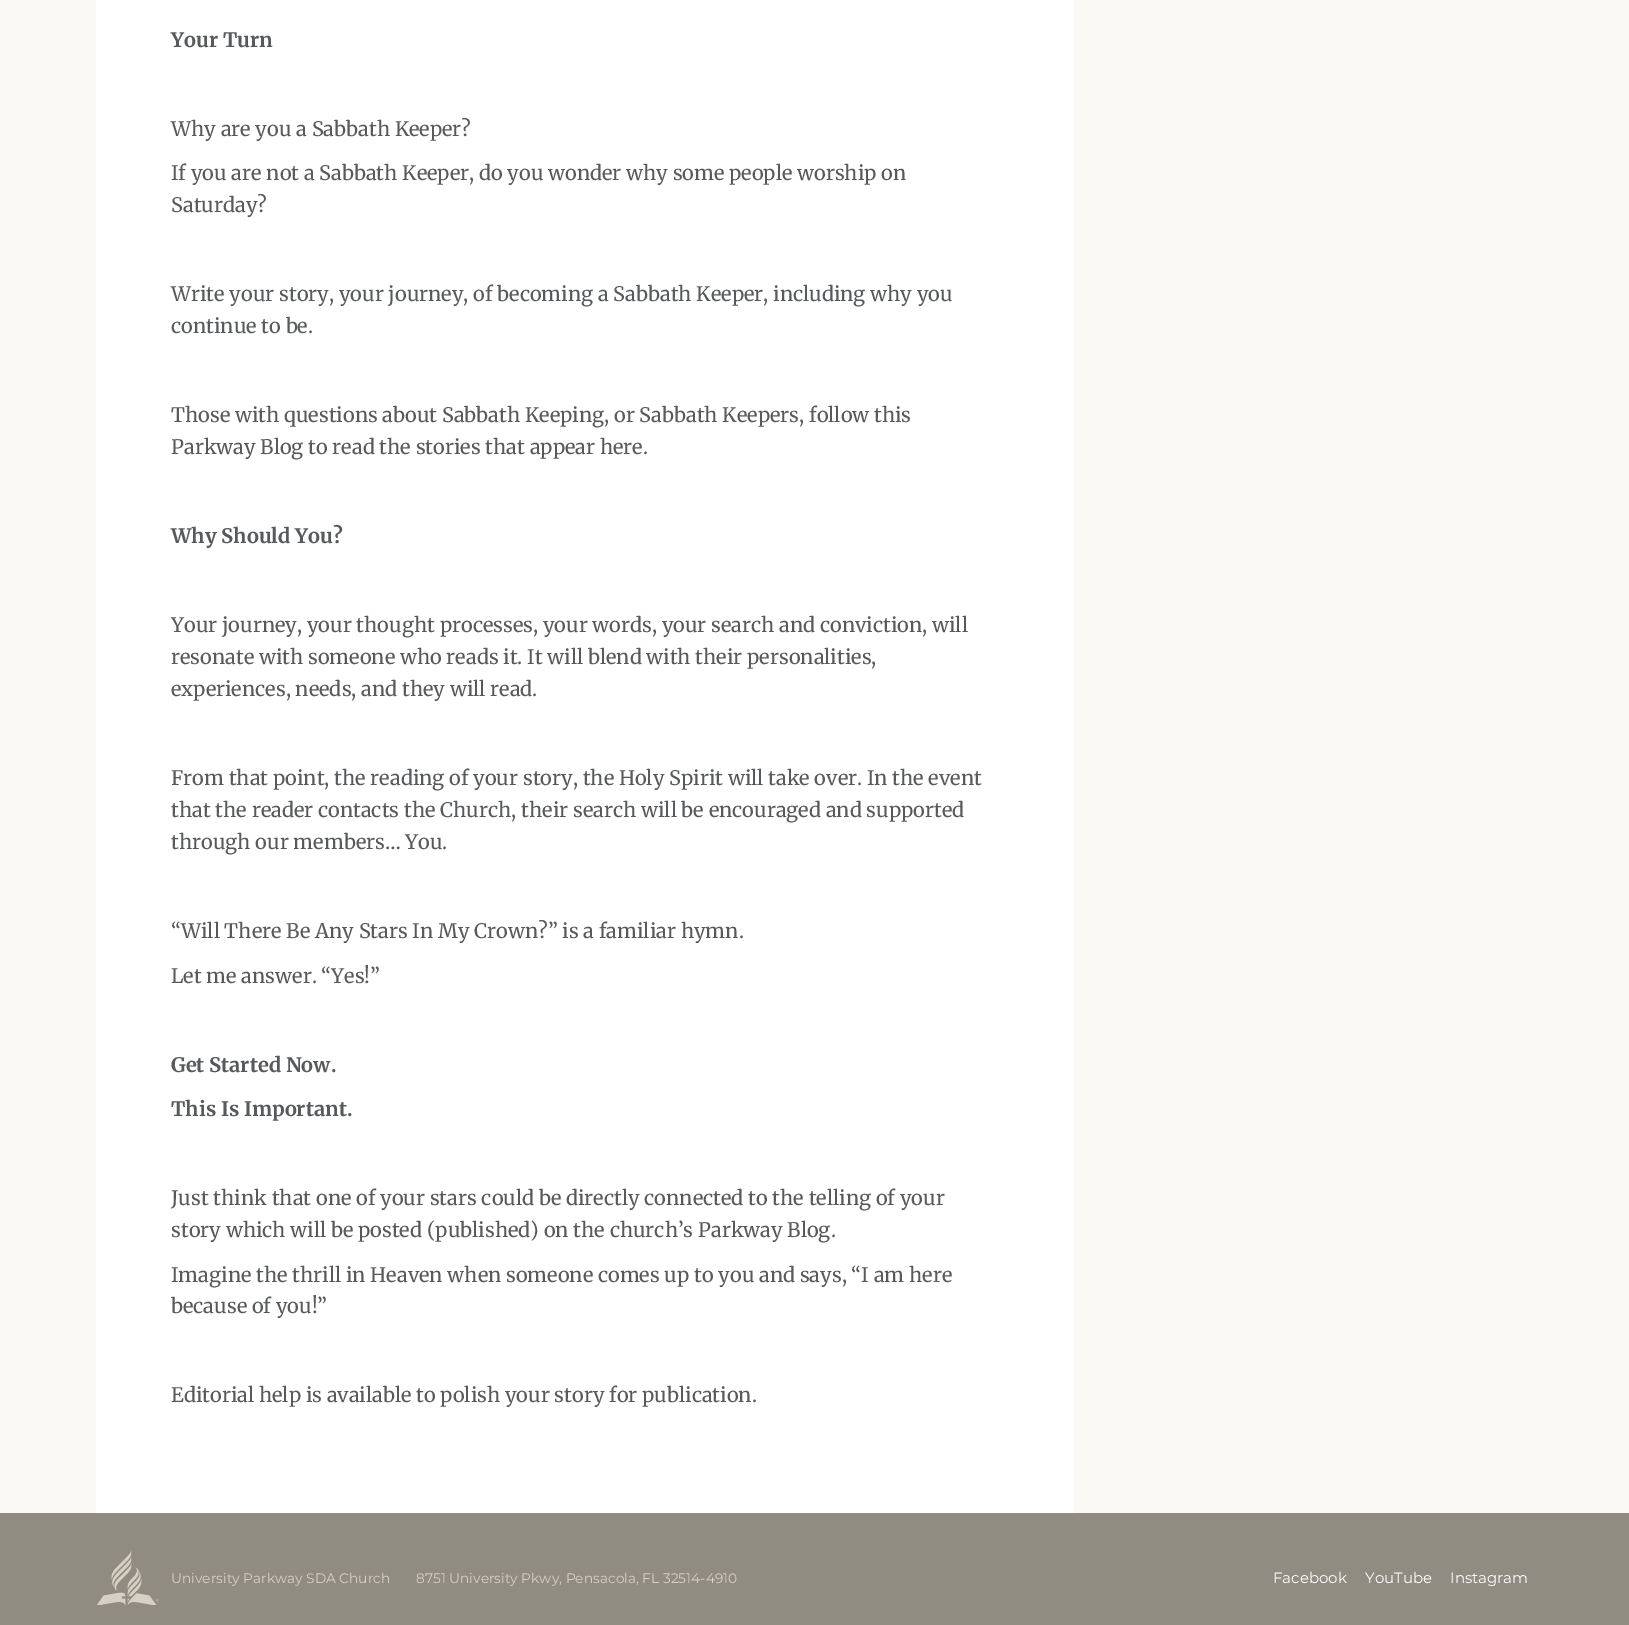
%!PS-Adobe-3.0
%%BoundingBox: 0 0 1629 1625
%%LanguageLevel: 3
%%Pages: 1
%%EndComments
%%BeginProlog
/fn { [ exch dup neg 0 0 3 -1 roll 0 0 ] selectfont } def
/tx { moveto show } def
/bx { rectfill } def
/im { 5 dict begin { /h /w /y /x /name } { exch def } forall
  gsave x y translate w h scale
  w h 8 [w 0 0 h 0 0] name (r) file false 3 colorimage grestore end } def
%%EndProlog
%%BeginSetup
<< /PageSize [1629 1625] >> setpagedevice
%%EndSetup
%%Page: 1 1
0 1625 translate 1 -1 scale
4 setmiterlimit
0.565 0.549 0.506 setrgbcolor
0 0 1629 1625 bx
0.984 0.976 0.953 setrgbcolor
0 0 1629 1513 bx
1 setgray
96 0 978 1513 bx
/Merriweather-Bold 20 fn
0.341 0.353 0.361 setrgbcolor
(Your Turn) 171 47 tx
/Merriweather-Regular 20 fn
(Why are you a Sabbath Keeper?) 171 136 tx
(If you are not a Sabbath Keeper, do you wonder why some people worship on) 171 180 tx
(Saturday?) 171 212 tx
(Write your story, your journey, of becoming a Sabbath Keeper, including why you) 171 301 tx
(continue to be.) 171 333 tx
(Those with questions about Sabbath Keeping, or Sabbath Keepers, follow this) 171 422 tx
(Parkway Blog to read the stories that appear here.) 171 454 tx
/Merriweather-Bold 20 fn
(Why Should You?) 171 543 tx
/Merriweather-Regular 20 fn
(Your journey, your thought processes, your words, your search and conviction, will) 171 632 tx
(resonate with someone who reads it. It will blend with their personalities,) 171 664 tx
(experiences, needs, and they will read.) 171 696 tx
(From that point, the reading of your story, the Holy Spirit will take over. In the event) 171 785 tx
(that the reader contacts the Church, their search will be encouraged and supported) 171 817 tx
(through our members… You.) 171 849 tx
(“Will There Be Any Stars In My Crown?” is a familiar hymn.) 171 938 tx
(Let me answer. “Yes!”) 171 983 tx
/Merriweather-Bold 20 fn
(Get Started Now.) 171 1072 tx
(This Is Important.) 171 1116 tx
/Merriweather-Regular 20 fn
(Just think that one of your stars could be directly connected to the telling of your) 171 1205 tx
(story which will be posted \(published\) on the church’s Parkway Blog.) 171 1237 tx
(Imagine the thrill in Heaven when someone comes up to you and says, “I am here) 171 1282 tx
(because of you!”) 171 1313 tx
(Editorial help is available to polish your story for publication.) 171 1402 tx
(image0.raw) 97 1550 62 55 im
/Montserrat-Thin 13.75 fn
0.839 0.82 0.761 setrgbcolor
(University Parkway SDA Church) 171 1583 tx
(8751 University Pkwy, Pensacola, FL 32514-4910) 416 1583 tx
/Montserrat-Thin 15 fn
1 setgray
(Facebook) 1273 1583 tx
(YouTube) 1365 1583 tx
(Instagram) 1450 1583 tx
showpage
%%EOF
